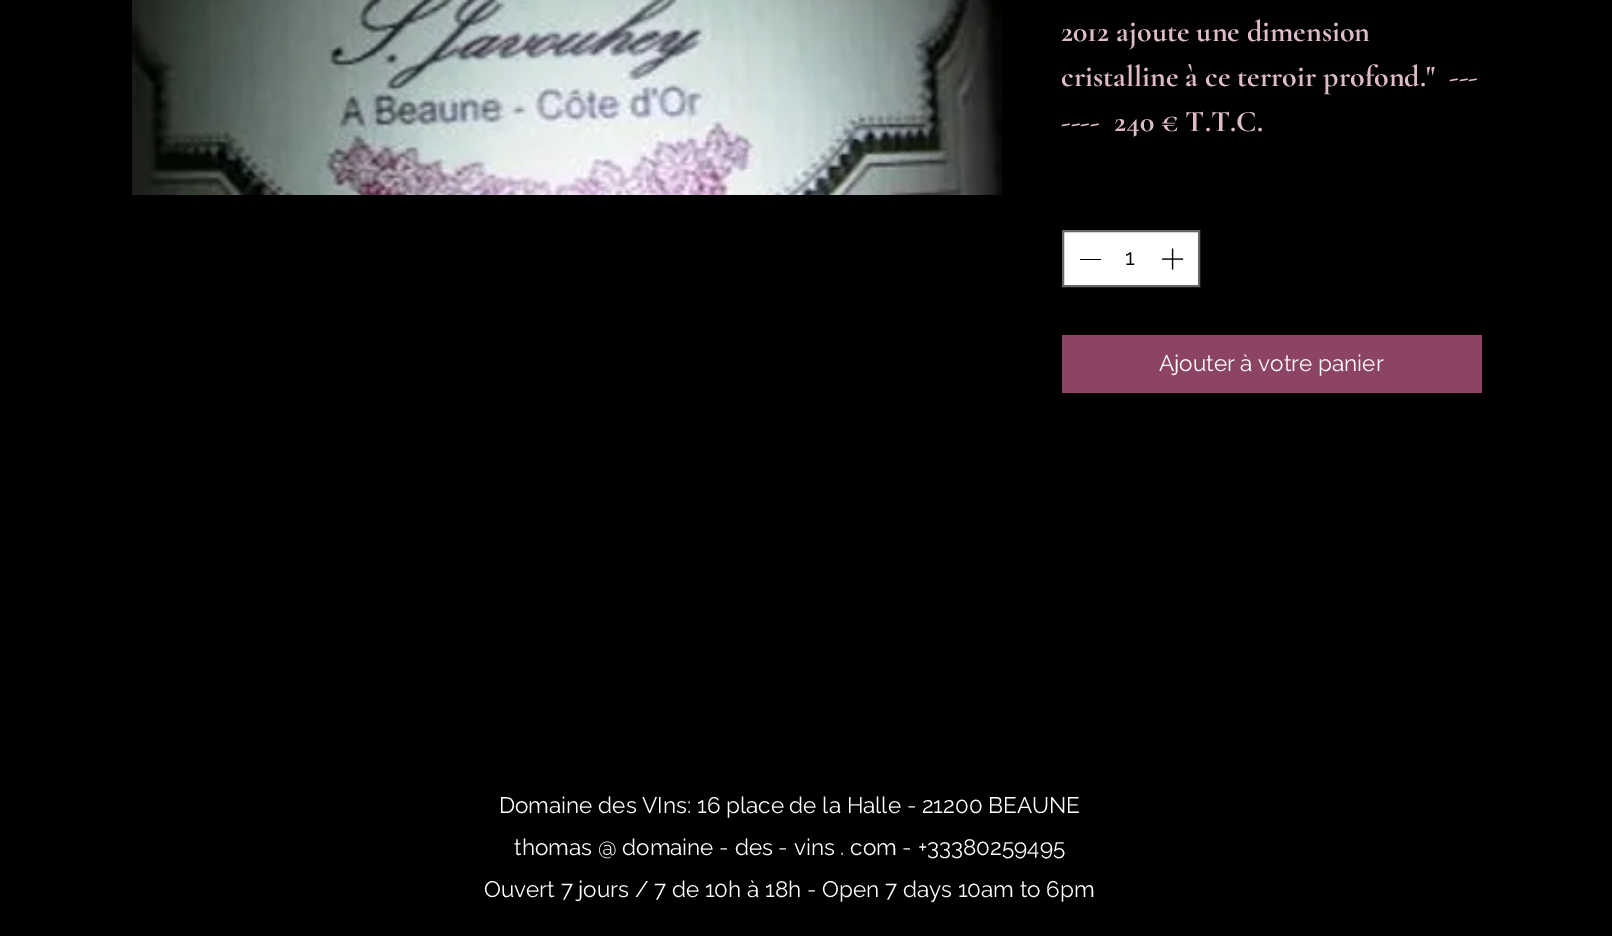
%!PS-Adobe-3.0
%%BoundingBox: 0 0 1612 936
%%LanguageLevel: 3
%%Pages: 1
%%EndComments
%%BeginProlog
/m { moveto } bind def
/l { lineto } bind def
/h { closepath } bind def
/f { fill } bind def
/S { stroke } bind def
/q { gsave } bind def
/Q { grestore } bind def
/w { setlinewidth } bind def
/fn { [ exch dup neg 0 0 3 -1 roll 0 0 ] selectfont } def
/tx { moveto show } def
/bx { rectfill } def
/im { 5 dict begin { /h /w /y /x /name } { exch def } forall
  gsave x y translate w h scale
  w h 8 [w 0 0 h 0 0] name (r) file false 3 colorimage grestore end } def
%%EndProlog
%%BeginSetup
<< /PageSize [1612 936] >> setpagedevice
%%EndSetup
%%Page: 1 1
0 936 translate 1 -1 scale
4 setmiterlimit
0 setgray
0 0 1612 936 bx
(image0.raw) 132 0 870 195 im
/CormorantGaramond-Bold 30 fn
0.871 0.733 0.796 setrgbcolor
(2012 ajoute une dimension) 1061 41 tx
(cristalline à ce terroir profond."  ---) 1061 86 tx
(----  240 € T.T.C.) 1061 131 tx
1 setgray
1063 231 m 1199 231 l 1199 286 l 1063 286 l h q f Q
0.4 setgray
2 w
S
0 setgray
1080 259 21 1 bx
/Raleway-Regular 22.5 fn
(1) 1125 265 tx
(image1.raw) 1162 248 22 22 im
0.553 0.267 0.392 setrgbcolor
1062 335 420 58 bx
1 setgray
(Ajouter à votre panier) 1159 371 tx
(Domaine des VIns: 16 place de la Halle - 21200 BEAUNE) 499 813 tx
(thomas @ domaine - des - vins . com - +33380259495) 514 855 tx
(Ouvert 7 jours / 7 de 10h à 18h - Open 7 days 10am to 6pm) 484 897 tx
showpage
%%EOF
